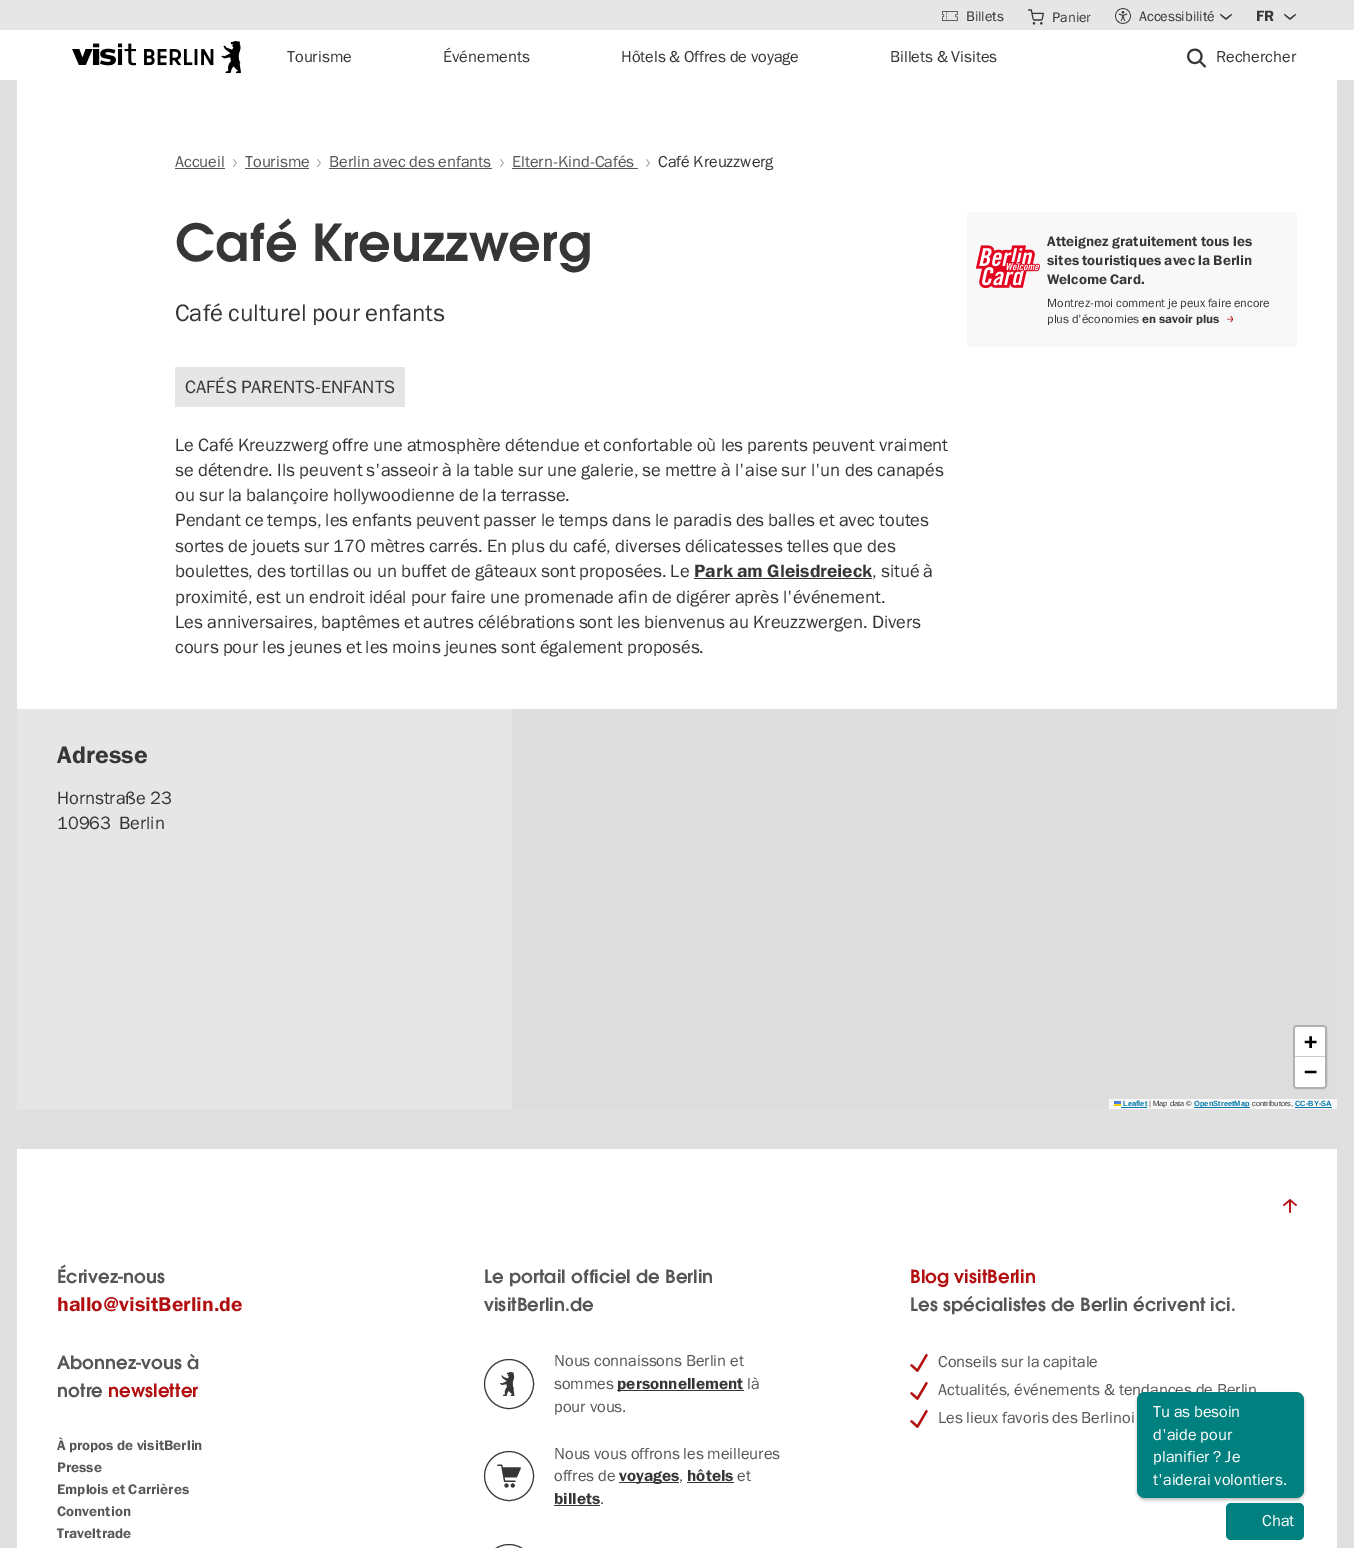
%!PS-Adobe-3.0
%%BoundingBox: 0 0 1354 1548
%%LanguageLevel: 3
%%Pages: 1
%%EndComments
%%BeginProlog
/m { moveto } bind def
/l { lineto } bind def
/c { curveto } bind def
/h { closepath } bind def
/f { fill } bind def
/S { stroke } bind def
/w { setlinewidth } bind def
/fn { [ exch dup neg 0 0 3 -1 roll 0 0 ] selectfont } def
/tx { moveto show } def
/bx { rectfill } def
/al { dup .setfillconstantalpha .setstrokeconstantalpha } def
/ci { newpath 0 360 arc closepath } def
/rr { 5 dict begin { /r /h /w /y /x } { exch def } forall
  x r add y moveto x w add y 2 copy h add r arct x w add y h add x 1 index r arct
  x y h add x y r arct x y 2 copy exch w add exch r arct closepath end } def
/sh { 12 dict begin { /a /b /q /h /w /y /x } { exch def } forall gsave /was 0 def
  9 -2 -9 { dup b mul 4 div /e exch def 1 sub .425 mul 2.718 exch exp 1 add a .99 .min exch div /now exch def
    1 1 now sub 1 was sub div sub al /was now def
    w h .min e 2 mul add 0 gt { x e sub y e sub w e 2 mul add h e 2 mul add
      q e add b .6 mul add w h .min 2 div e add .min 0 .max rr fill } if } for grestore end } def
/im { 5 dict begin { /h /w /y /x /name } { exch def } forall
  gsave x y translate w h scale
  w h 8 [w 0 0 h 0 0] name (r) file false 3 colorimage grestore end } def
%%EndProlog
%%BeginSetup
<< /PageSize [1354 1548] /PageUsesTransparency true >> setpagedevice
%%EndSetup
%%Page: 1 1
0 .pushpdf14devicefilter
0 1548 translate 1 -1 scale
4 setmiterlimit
0.878 setgray
0 0 1354 1548 bx
1 setgray
0 30 1354 50 bx
0.902 setgray
0 0 1354 30 bx
(image0.raw) 942 11 16 10 im
/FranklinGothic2-Regular 14 fn
0.212 setgray
(Billets) 966 21 tx
(image1.raw) 1028 9 16 16 im
(Panier) 1052 22 tx
(image2.raw) 1115 8 16 16 im
(Accessibilité) 1139 21 tx
(image3.raw) 1220 14 12 6 im
/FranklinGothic-Regular 15 fn
(FR) 1256 21 tx
(image3.raw) 1284 14 12 6 im
(image4.raw) 72 41 169 33 im
/FranklinGothic2-Regular 16 fn
(Tourisme) 287 62 tx
(Événements) 443 62 tx
(Hôtels & Offres de voyage) 621 62 tx
(Billets & Visites) 890 62 tx
(image5.raw) 1187 48 19 20 im
(Rechercher) 1216 62 tx
1 setgray
17 80 1320 629 bx
0.337 setgray
(Accueil) 175 167 tx
175 168 50 1 bx
(image6.raw) 233 159 4 8 im
(Tourisme) 245 167 tx
245 168 64 1 bx
(image6.raw) 317 159 4 8 im
(Berlin avec des enfants) 329 167 tx
329 168 163 1 bx
(image6.raw) 500 159 4 8 im
(Eltern-Kind-Cafés) 512 167 tx
512 168 126 1 bx
(image6.raw) 646 159 4 8 im
0.212 setgray
(Café Kreuzzwerg) 658 167 tx
/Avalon-SemiBold 56 fn
(Café Kreuzzwerg) 175 261 tx
/FranklinGothic2-Regular 24 fn
(Café culturel pour enfants) 175 321 tx
0.973 setgray
967 212 330 135 bx
(image7.raw) 975 245 65 44 im
/FranklinGothic-Regular 14 fn
0.212 setgray
(Atteignez gratuitement tous les) 1047 246 tx
(sites touristiques avec la Berlin) 1047 265 tx
(Welcome Card.) 1047 284 tx
/FranklinGothic2-Regular 12 fn
(Montrez-moi comment je peux faire encore) 1047 307 tx
(plus d'économies) 1047 323 tx
/FranklinGothic-Regular 12 fn
(en savoir plus) 1142 323 tx
(image8.raw) 1227 316 6 7 im
0.902 setgray
175 367 230 40 bx
/FranklinGothic2-Regular 18 fn
0.212 setgray
(CAFÉS PARENTS-ENFANTS) 185 393 tx
(Le Café Kreuzzwerg offre une atmosphère détendue et confortable où les parents peuvent vraiment) 175 451 tx
(se détendre. Ils peuvent s'asseoir à la table sur une galerie, se mettre à l'aise sur l'un des canapés) 175 476 tx
(ou sur la balançoire hollywoodienne de la terrasse.) 175 501 tx
(Pendant ce temps, les enfants peuvent passer le temps dans le paradis des balles et avec toutes) 175 526 tx
(sortes de jouets sur 170 mètres carrés. En plus du café, diverses délicatesses telles que des) 175 552 tx
(boulettes, des tortillas ou un buffet de gâteaux sont proposées. Le) 175 577 tx
/FranklinGothic-Regular 18 fn
(Park am Gleisdreieck) 694 577 tx
694 578 178 1 bx
/FranklinGothic2-Regular 18 fn
(, situé à) 872 577 tx
(proximité, est un endroit idéal pour faire une promenade afin de digérer après l'événement.) 175 603 tx
(Les anniversaires, baptêmes et autres célébrations sont les bienvenus au Kreuzzwergen. Divers) 175 628 tx
(cours pour les jeunes et les moins jeunes sont également proposés.) 175 653 tx
0.902 setgray
17 709 495 400 bx
/FranklinGothic-Regular 24 fn
0.212 setgray
(Adresse) 57 763 tx
/FranklinGothic2-Regular 18 fn
(Hornstraße 23) 57 804 tx
(10963) 57 829 tx
(Berlin) 119 829 tx
0.867 setgray
512 709 825 400 bx
0.694 setgray
2 w
1294 1026 32 62 3 rr S
1 setgray
1297 1027 m 1323 1027 l 1324 1027 1325 1028 1325 1029 c 1325 1057 l 1295 1057 l 1295 1029 l 1295 1028 1296 1027 1297 1027 c h f
0.8 setgray
1295 1056 30 1 bx
/DejaVuSansMono-Bold 22 fn
0 setgray
(+) 1304 1049 tx
1 setgray
1295 1057 m 1325 1057 l 1325 1085 l 1325 1086 1324 1087 1323 1087 c 1297 1087 l 1296 1087 1295 1086 1295 1085 c h f
0 setgray
(−) 1304 1079 tx
0.973 setgray
1109 1099 228 10 bx
(image9.raw) 1114 1101 7 5 im
/LiberationSans-Bold 7.5 fn
0 0.471 0.659 setrgbcolor
(Leaflet) 1123 1106 tx
1121 1107 26 1 bx
/LiberationSans-Regular 7.5 fn
0.212 setgray
(| Map data ©) 1149 1106 tx
0 0.471 0.659 setrgbcolor
1194 1107 56 1 bx
/LiberationSans-Bold 7.5 fn
(OpenStreetMap) 1194 1106 tx
/LiberationSans-Regular 7.5 fn
0.212 setgray
(contributors,) 1252 1106 tx
/LiberationSans-Bold 7.5 fn
0 0.471 0.659 setrgbcolor
(CC-BY-SA) 1295 1106 tx
1295 1107 37 1 bx
1 setgray
17 1149 1320 399 bx
(image10.raw) 1283 1199 14 14 im
/Avalon-SemiBold 20 fn
0.337 setgray
(Écrivez-nous) 57 1283 tx
/FranklinGothic-Regular 20 fn
0.698 0.055 0.063 setrgbcolor
(hallo@visitBerlin.de) 57 1311 tx
/Avalon-SemiBold 20 fn
0.337 setgray
(Abonnez-vous à) 57 1369 tx
(notre) 57 1397 tx
0.698 0.055 0.063 setrgbcolor
(newsletter) 108 1397 tx
/FranklinGothic-Regular 14 fn
0.337 setgray
(À propos de visitBerlin) 57 1450 tx
(Presse) 57 1472 tx
(Emplois et Carrières) 57 1494 tx
(Convention) 57 1516 tx
(Traveltrade) 57 1538 tx
/Avalon-SemiBold 20 fn
(Le portail officiel de Berlin) 484 1283 tx
(visitBerlin.de) 484 1311 tx
0.212 setgray
1 w
509 1384 24.5 ci S
(image11.raw) 499 1372 16 24 im
/FranklinGothic2-Regular 16 fn
0.337 setgray
(Nous connaissons Berlin et) 554 1366 tx
(sommes) 554 1389 tx
0.212 setgray
617 1390 127 1 bx
/FranklinGothic-Regular 16 fn
(personnellement) 617 1389 tx
/FranklinGothic2-Regular 16 fn
0.337 setgray
(là) 747 1389 tx
(pour vous.) 554 1412 tx
0.212 setgray
509 1476 24.5 ci S
(image12.raw) 497 1464 24 24 im
0.337 setgray
(Nous vous offrons les meilleures) 554 1459 tx
(offres de) 554 1481 tx
0.212 setgray
619 1482 60 1 bx
/FranklinGothic-Regular 16 fn
(voyages) 619 1481 tx
/FranklinGothic2-Regular 16 fn
0.337 setgray
(,) 679 1481 tx
/FranklinGothic-Regular 16 fn
0.212 setgray
(hôtels) 687 1481 tx
687 1482 47 1 bx
/FranklinGothic2-Regular 16 fn
0.337 setgray
(et) 737 1481 tx
/FranklinGothic-Regular 16 fn
0.212 setgray
(billets) 554 1504 tx
554 1505 46 1 bx
/FranklinGothic2-Regular 16 fn
0.337 setgray
(.) 600 1504 tx
0.212 setgray
484.5 1544.5 49 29 24.5 rr S
/Avalon-SemiBold 20 fn
0.698 0.055 0.063 setrgbcolor
(Blog visitBerlin) 910 1283 tx
0.337 setgray
(Les spécialistes de Berlin écrivent ici.) 910 1311 tx
(image13.raw) 910 1354 18 18 im
/FranklinGothic2-Regular 16 fn
(Conseils sur la capitale) 938 1367 tx
(image13.raw) 910 1382 18 18 im
(Actualités, événements & tendances de Berlin) 938 1395 tx
(image13.raw) 910 1410 18 18 im
(Les lieux favoris des Berlinoi) 938 1423 tx
0 setgray
1137 1394 167 106 8 1.5 0.25 sh
0 0.506 0.498 setrgbcolor
1137 1392 167 106 8 rr f
1 setgray
(Tu as besoin) 1153 1417 tx
(d'aide pour) 1153 1440 tx
(planifier ? Je) 1153 1462 tx
(t'aiderai volontiers.) 1153 1485 tx
0 0.506 0.498 setrgbcolor
1226 1503 78 37 5 rr f
1 setgray
(Chat) 1262 1526 tx
.poppdf14devicefilter showpage
%%EOF
